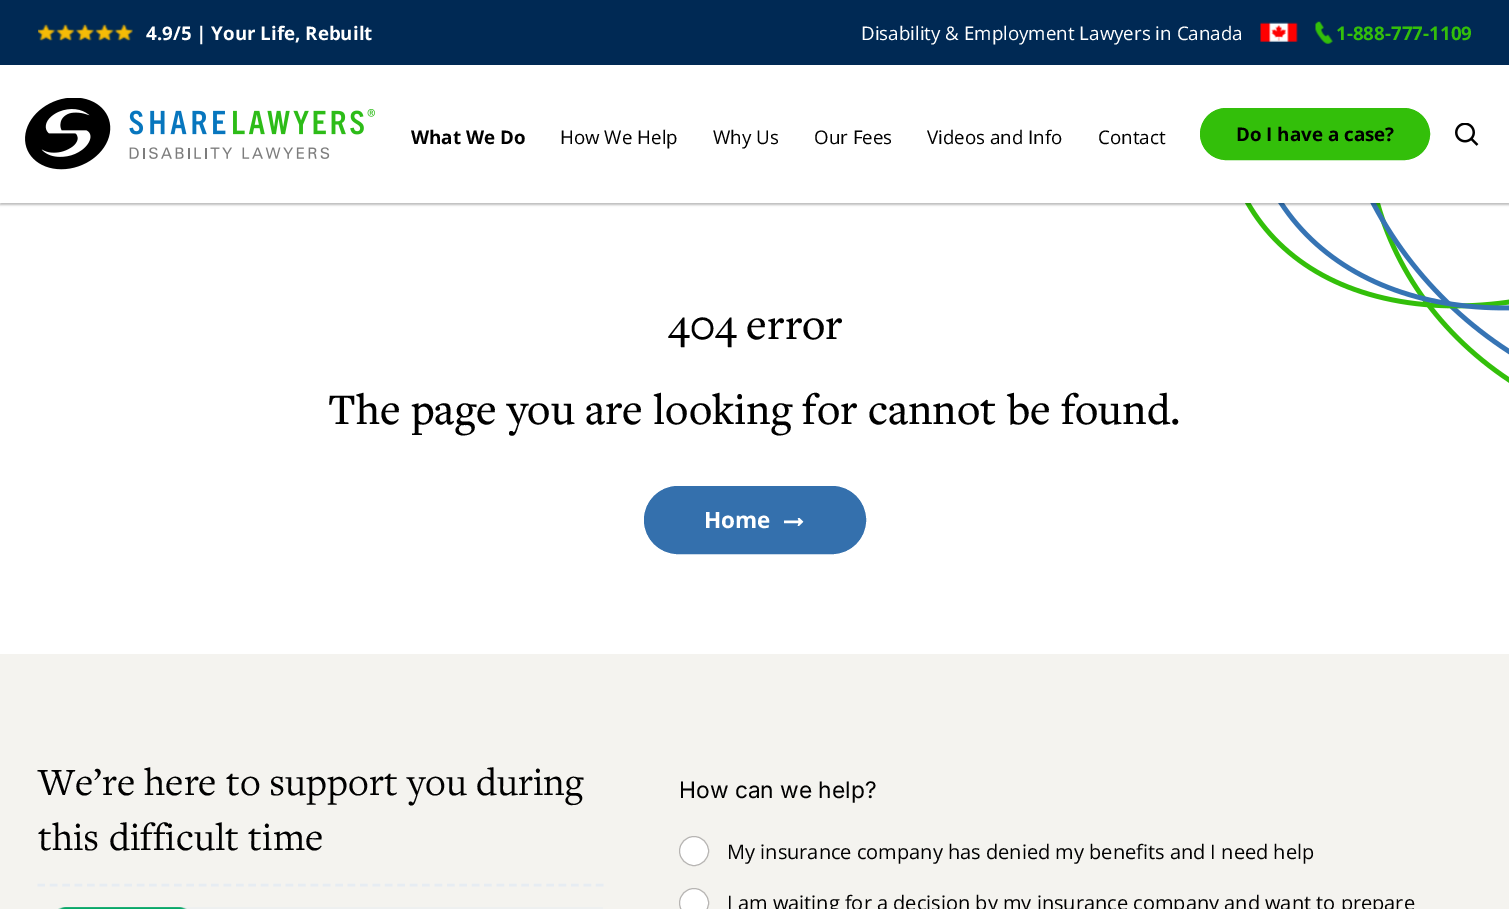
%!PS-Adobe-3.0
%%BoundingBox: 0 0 1509 909
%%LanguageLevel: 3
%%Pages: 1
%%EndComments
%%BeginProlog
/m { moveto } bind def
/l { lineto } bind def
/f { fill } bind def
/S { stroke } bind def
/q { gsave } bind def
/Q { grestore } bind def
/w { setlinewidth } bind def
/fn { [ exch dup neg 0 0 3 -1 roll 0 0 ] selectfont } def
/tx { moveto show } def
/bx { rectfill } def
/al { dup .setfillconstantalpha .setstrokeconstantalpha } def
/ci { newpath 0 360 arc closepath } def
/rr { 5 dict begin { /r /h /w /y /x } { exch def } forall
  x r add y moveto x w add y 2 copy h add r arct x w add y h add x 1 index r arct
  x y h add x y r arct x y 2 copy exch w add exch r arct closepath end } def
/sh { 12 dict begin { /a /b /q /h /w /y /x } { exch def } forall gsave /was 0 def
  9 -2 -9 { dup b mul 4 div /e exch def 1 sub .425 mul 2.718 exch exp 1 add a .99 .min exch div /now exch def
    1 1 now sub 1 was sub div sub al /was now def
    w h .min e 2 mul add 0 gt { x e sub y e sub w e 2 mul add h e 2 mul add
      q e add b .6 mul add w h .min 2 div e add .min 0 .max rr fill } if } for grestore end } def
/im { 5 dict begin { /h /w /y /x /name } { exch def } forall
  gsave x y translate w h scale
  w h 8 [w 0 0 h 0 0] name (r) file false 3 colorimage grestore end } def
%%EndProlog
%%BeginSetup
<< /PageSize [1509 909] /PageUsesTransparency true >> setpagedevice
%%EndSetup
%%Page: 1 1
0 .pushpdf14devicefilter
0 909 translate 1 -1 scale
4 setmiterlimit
1 setgray
0 0 1509 909 bx
(image5.raw) 1245 203 264 180 im
0 setgray
0 3 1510 202 0 1 0.25 sh
1 setgray
0 65 1509 138 bx
0 0.161 0.329 setrgbcolor
0 0 1509 65 bx
(image0.raw) 38 24 95 17 im
/OpenSans-Bold 18.75 fn
1 setgray
(4.9/5 | Your Life, Rebuilt) 146 40 tx
/OpenSans-Regular 18.75 fn
(Disability & Employment Lawyers in Canada) 861 40 tx
(image1.raw) 1260 22 38 20 im
(image2.raw) 1315 21 18 23 im
/OpenSans-Bold 18.75 fn
0.2 0.749 0.039 setrgbcolor
(1-888-777-1109) 1336 40 tx
(image3.raw) 25 98 350 72 im
0 setgray
(What We Do) 411 144 tx
/OpenSans-Regular 18.75 fn
(How We Help) 560 144 tx
(Why Us) 713 144 tx
(Our Fees) 814 144 tx
(Videos and Info) 927 144 tx
(Contact) 1098 144 tx
0.2 0.749 0.039 setrgbcolor
1200.5 108.5 229 51 25.5 rr q f Q
S
/OpenSans-Bold 18.75 fn
0 setgray
(Do I have a case?) 1236 141 tx
(image4.raw) 1455 123 24 23 im
/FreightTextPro-Medium 45 fn
(404 error) 668 339 tx
(The page you are looking for cannot be found.) 328 424 tx
0.204 0.439 0.678 setrgbcolor
644.5 486.5 221 67 33.5 rr q f Q
S
/OpenSans-Bold 22.5 fn
1 setgray
(Home) 704 528 tx
(image6.raw) 784 518 20 8 im
0.957 0.953 0.937 setrgbcolor
0 654 1509 255 bx
/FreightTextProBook-Regular 40 fn
0 setgray
(We’re here to support you during) 38 795 tx
(this difficult time) 38 850 tx
0.902 0.925 0.949 setrgbcolor
2.5 w
[7.5 4.91] 0 setdash
37.5 885 m 604 885 l S
(image7.raw) 58 907 545 2 im
/Inter-Regular 22.75 fn
0 setgray
(How can we help?) 679 798 tx
1 setgray
694 851 14.5 ci q f Q
0.718 0.71 0.702 setrgbcolor
1 w
[] 0 setdash
S
/OpenSans-Regular 20 fn
0 setgray
(My insurance company has denied my benefits and I need help) 727 859 tx
1 setgray
694 903 14.5 ci q f Q
0.718 0.71 0.702 setrgbcolor
S
0 setgray
(I am waiting for a decision by my insurance company and want to prepare) 727 910 tx
.poppdf14devicefilter showpage
%%EOF
